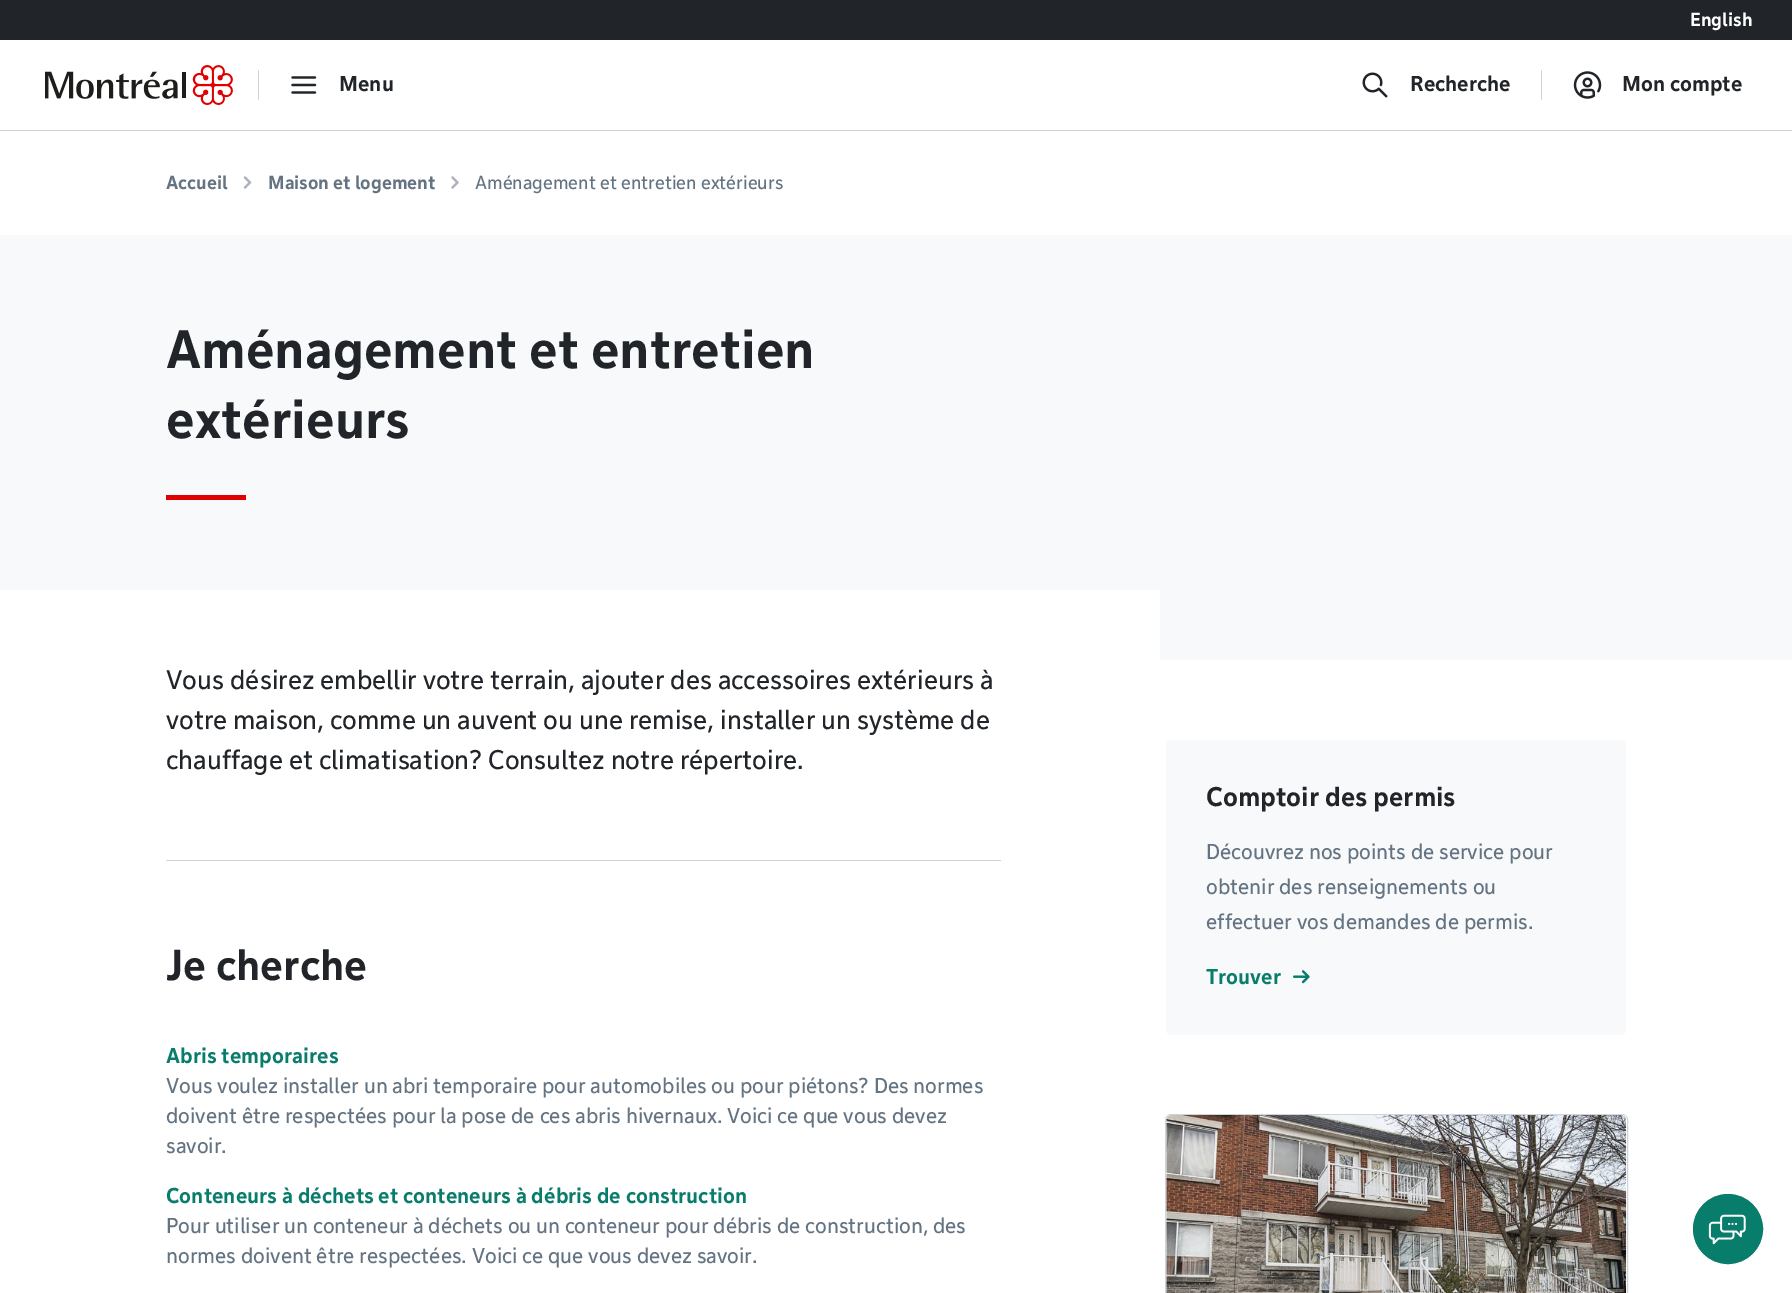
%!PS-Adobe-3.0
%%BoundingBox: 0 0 1792 1293
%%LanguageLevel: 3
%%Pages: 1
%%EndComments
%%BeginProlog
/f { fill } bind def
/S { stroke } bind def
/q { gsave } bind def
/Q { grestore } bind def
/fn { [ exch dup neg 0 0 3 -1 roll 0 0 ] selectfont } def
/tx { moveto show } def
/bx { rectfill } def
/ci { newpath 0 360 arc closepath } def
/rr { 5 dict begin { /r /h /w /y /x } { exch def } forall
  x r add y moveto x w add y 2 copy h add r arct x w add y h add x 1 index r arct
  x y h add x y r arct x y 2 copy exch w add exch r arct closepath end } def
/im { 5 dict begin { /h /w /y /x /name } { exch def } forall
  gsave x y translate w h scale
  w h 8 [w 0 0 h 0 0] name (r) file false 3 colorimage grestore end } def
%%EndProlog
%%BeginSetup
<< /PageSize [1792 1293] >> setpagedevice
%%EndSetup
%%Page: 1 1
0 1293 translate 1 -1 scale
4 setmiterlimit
1 setgray
0 0 1792 1293 bx
0.129 0.145 0.161 setrgbcolor
0 0 1792 40 bx
/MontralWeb-SemiBold 17.5 fn
1 setgray
(English) 1690 26 tx
0.808 0.831 0.855 setrgbcolor
0 130 1792 1 bx
(image0.raw) 45 65 188 40 im
258 70 1 30 bx
(image1.raw) 291 76 26 18 im
/MontralWeb-SemiBold 20 fn
0.129 0.145 0.161 setrgbcolor
(Menu) 339 91 tx
(image2.raw) 1362 72 26 26 im
(Recherche) 1410 91 tx
0.808 0.831 0.855 setrgbcolor
1541 70 1 30 bx
(image3.raw) 1573 71 29 28 im
0.129 0.145 0.161 setrgbcolor
(Mon compte) 1622 91 tx
/MontralWeb-SemiBold 17.5 fn
0.388 0.451 0.506 setrgbcolor
(Accueil) 166 189 tx
(image4.raw) 243 176 9 13 im
(Maison et logement) 268 189 tx
(image5.raw) 451 176 8 13 im
/MontralWeb-Regular 17.5 fn
(Aménagement et entretien extérieurs) 475 189 tx
0.973 0.976 0.98 setrgbcolor
0 235 1792 425 bx
/MontralWeb-SemiBold 50 fn
0.129 0.145 0.161 setrgbcolor
(Aménagement et entretien) 166 368 tx
(extérieurs) 166 438 tx
0.878 0 0 setrgbcolor
166 495 80 5 bx
1 setgray
0 590 1160 70 bx
0.808 0.831 0.855 setrgbcolor
166 860 835 1 bx
/MontralWeb-Regular 25 fn
0.129 0.145 0.161 setrgbcolor
(Vous désirez embellir votre terrain, ajouter des accessoires extérieurs à) 166 689 tx
(votre maison, comme un auvent ou une remise, installer un système de) 166 729 tx
(chauffage et climatisation? Consultez notre répertoire.) 166 769 tx
/MontralWeb-SemiBold 40 fn
(Je cherche) 166 980 tx
/MontralWeb-SemiBold 20 fn
0.035 0.49 0.424 setrgbcolor
(Abris temporaires) 166 1063 tx
/MontralWeb-Regular 20 fn
0.388 0.451 0.506 setrgbcolor
(Vous voulez installer un abri temporaire pour automobiles ou pour piétons? Des normes) 166 1093 tx
(doivent être respectées pour la pose de ces abris hivernaux. Voici ce que vous devez) 166 1123 tx
(savoir.) 166 1153 tx
/MontralWeb-SemiBold 20 fn
0.035 0.49 0.424 setrgbcolor
(Conteneurs à déchets et conteneurs à débris de construction) 166 1203 tx
/MontralWeb-Regular 20 fn
0.388 0.451 0.506 setrgbcolor
(Pour utiliser un conteneur à déchets ou un conteneur pour débris de construction, des) 166 1233 tx
(normes doivent être respectées. Voici ce que vous devez savoir.) 166 1263 tx
0.973 0.976 0.98 setrgbcolor
1166 740 460 295 5 rr f
/MontralWeb-SemiBold 25 fn
0.129 0.145 0.161 setrgbcolor
(Comptoir des permis) 1206 806 tx
/MontralWeb-Regular 20 fn
0.388 0.451 0.506 setrgbcolor
(Découvrez nos points de service pour) 1206 859 tx
(obtenir des renseignements ou) 1206 894 tx
(effectuer vos demandes de permis.) 1206 929 tx
/MontralWeb-SemiBold 20 fn
0.035 0.49 0.424 setrgbcolor
(Trouver) 1206 984 tx
(image6.raw) 1293 970 17 14 im
0.808 0.831 0.855 setrgbcolor
1165.5 1114.5 462 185 5.5 rr S
1 setgray
1166 1115 460 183 5 rr f
(image7.raw) 1166 1115 461 178 im
0.035 0.49 0.424 setrgbcolor
1728 1229 34.5 ci q f Q
S
(image8.raw) 1708 1214 38 31 im
showpage
%%EOF
